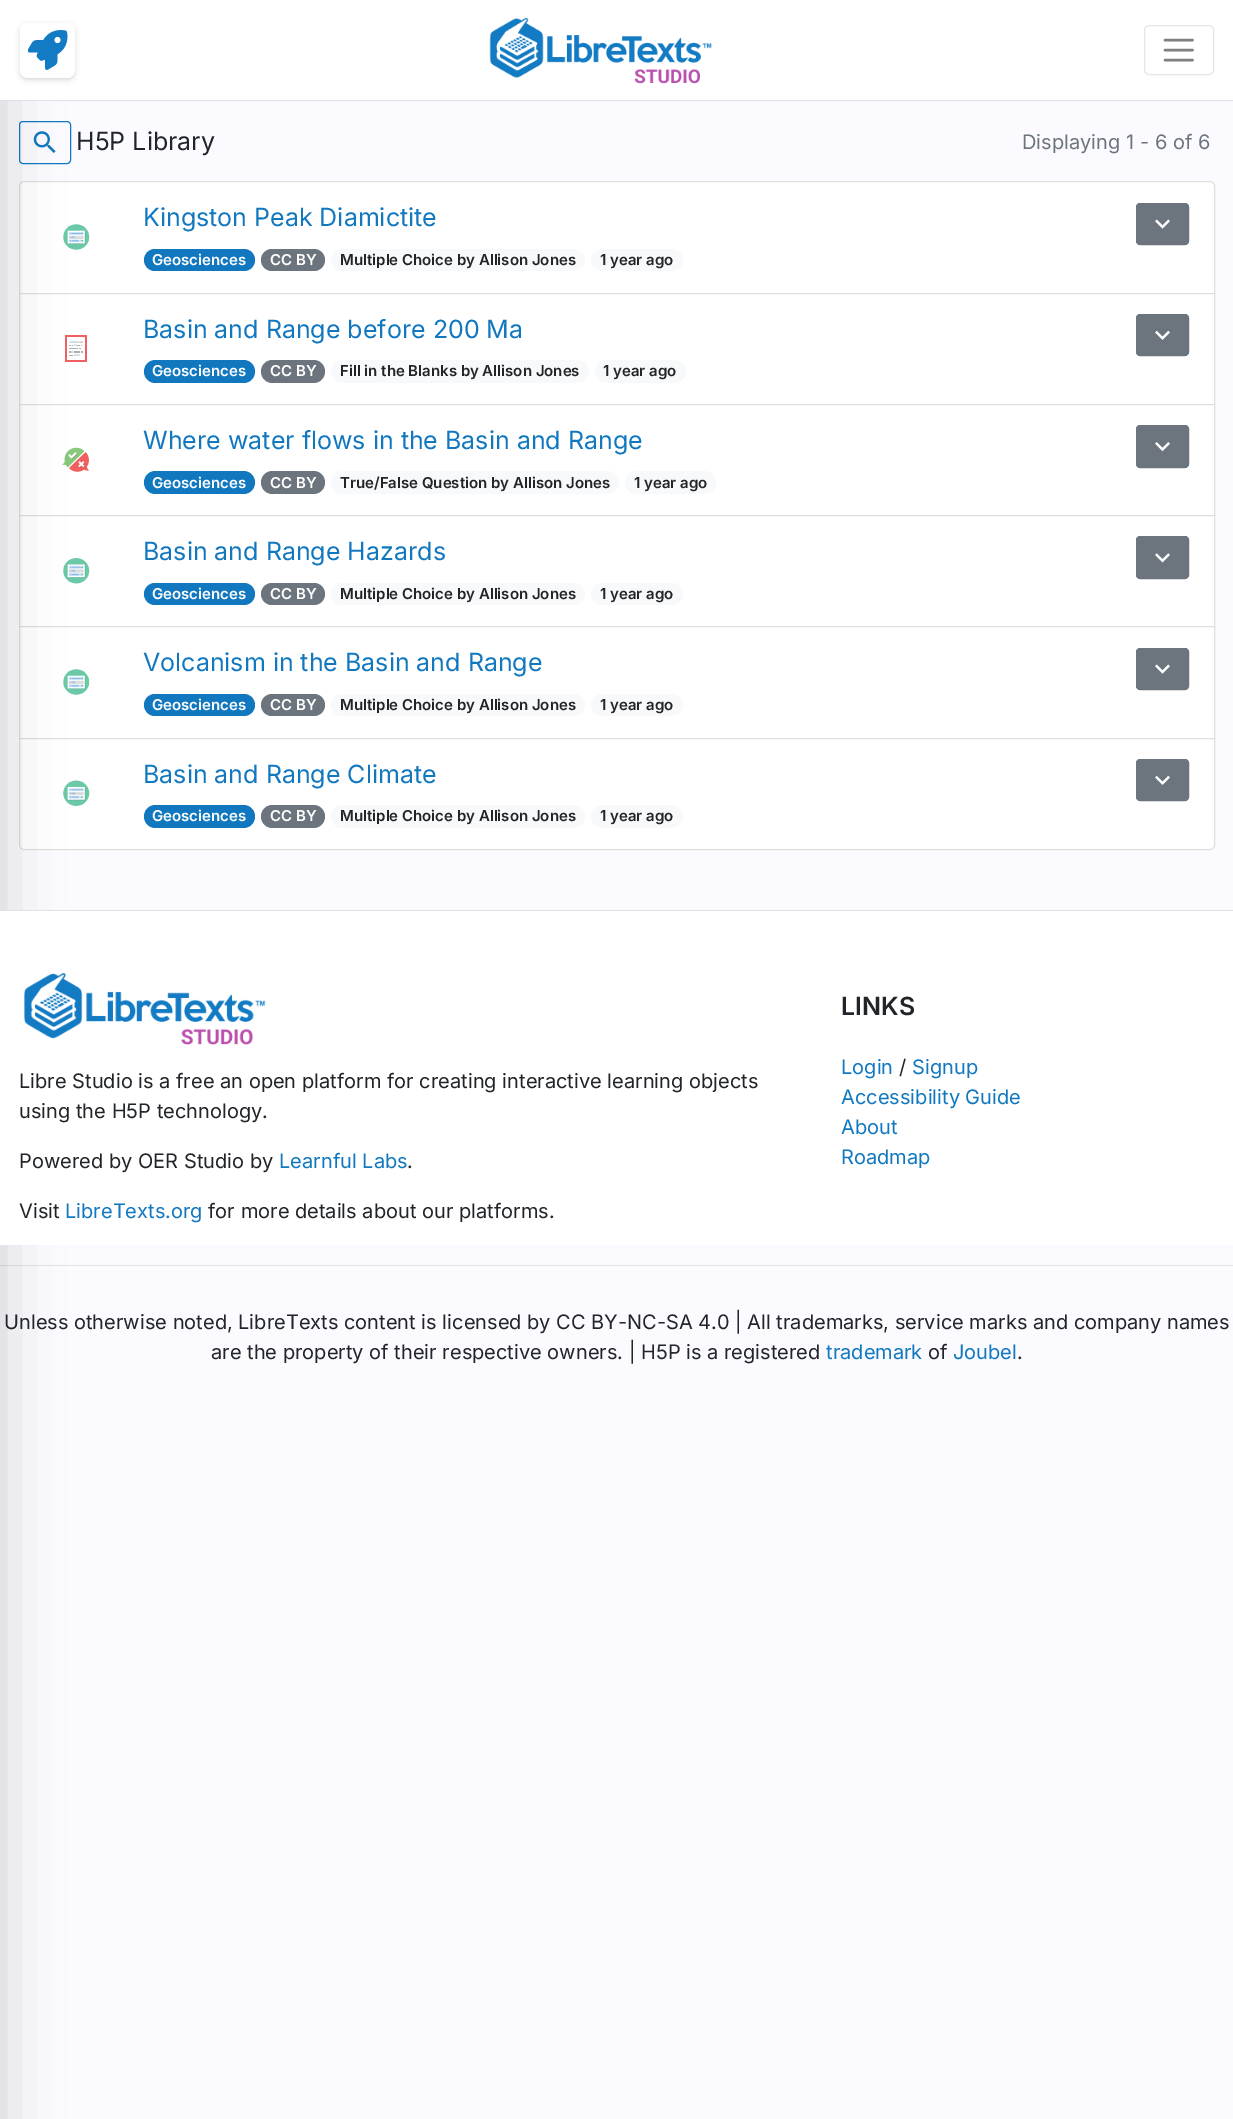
%!PS-Adobe-3.0
%%BoundingBox: 0 0 1233 2119
%%LanguageLevel: 3
%%Pages: 1
%%EndComments
%%BeginProlog
/m { moveto } bind def
/l { lineto } bind def
/c { curveto } bind def
/h { closepath } bind def
/f { fill } bind def
/S { stroke } bind def
/q { gsave } bind def
/Q { grestore } bind def
/w { setlinewidth } bind def
/fn { [ exch dup neg 0 0 3 -1 roll 0 0 ] selectfont } def
/tx { moveto show } def
/bx { rectfill } def
/al { dup .setfillconstantalpha .setstrokeconstantalpha } def
/rr { 5 dict begin { /r /h /w /y /x } { exch def } forall
  x r add y moveto x w add y 2 copy h add r arct x w add y h add x 1 index r arct
  x y h add x y r arct x y 2 copy exch w add exch r arct closepath end } def
/sh { 12 dict begin { /a /b /q /h /w /y /x } { exch def } forall gsave /was 0 def
  9 -2 -9 { dup b mul 4 div /e exch def 1 sub .425 mul 2.718 exch exp 1 add a .99 .min exch div /now exch def
    1 1 now sub 1 was sub div sub al /was now def
    w h .min e 2 mul add 0 gt { x e sub y e sub w e 2 mul add h e 2 mul add
      q e add b .6 mul add w h .min 2 div e add .min 0 .max rr fill } if } for grestore end } def
/im { 5 dict begin { /h /w /y /x /name } { exch def } forall
  gsave x y translate w h scale
  w h 8 [w 0 0 h 0 0] name (r) file false 3 colorimage grestore end } def
%%EndProlog
%%BeginSetup
<< /PageSize [1233 2119] /PageUsesTransparency true >> setpagedevice
%%EndSetup
%%Page: 1 1
0 .pushpdf14devicefilter
0 2119 translate 1 -1 scale
4 setmiterlimit
0.984 0.984 1 setrgbcolor
0 0 1233 2119 bx
0.067 0.471 0.753 setrgbcolor
19.5 121.5 51 42 3.5 rr S
(image2.raw) 33 131 23 22 im
1 setgray
24 181.5 m 1210 181.5 l 1212.5 181.5 1214.5 183.5 1214.5 186 c 1214.5 293.5 l 19.5 293.5 l 19.5 186 l 19.5 183.5 21.5 181.5 24 181.5 c h q f Q
0.875 setgray
S
(image3.raw) 63 224 27 26 im
1 setgray
19.5 293.5 m 1214.5 293.5 l 1214.5 404.5 l 19.5 404.5 l h q f Q
0.875 setgray
S
(image5.raw) 65 335 22 27 im
1 setgray
19.5 404.5 m 1214.5 404.5 l 1214.5 515.5 l 19.5 515.5 l h q f Q
0.875 setgray
S
(image7.raw) 61 447 29 25 im
1 setgray
20 516 1194 110 bx
0.875 setgray
19.5 515.5 1195 112 rectstroke
(image9.raw) 63 558 27 26 im
1 setgray
19.5 626.5 m 1214.5 626.5 l 1214.5 738.5 l 19.5 738.5 l h q f Q
0.875 setgray
S
(image3.raw) 63 669 27 26 im
1 setgray
19.5 738.5 m 1214.5 738.5 l 1214.5 845 l 1214.5 847.5 1212.5 849.5 1210 849.5 c 24 849.5 l 21.5 849.5 19.5 847.5 19.5 845 c h q f Q
0.875 setgray
S
(image11.raw) 63 780 27 26 im
0.886 0.886 0.902 setrgbcolor
0 1265 1233 1 bx
0 setgray
-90 20 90 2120 0 30 0.18 sh
1 setgray
0 0 1233 100 bx
0.871 0.886 0.902 setrgbcolor
0 100 1233 1 bx
0 setgray
21 26 53 53 6 3 0.2 sh
1 setgray
20 23 55 55 8 rr f
(image0.raw) 28 30 40 40 im
(image1.raw) 489 17 223 67 im
0.902 setgray
1144.5 25.5 69 49 4.5 rr S
0.502 setgray
2.5 w
1 setlinecap
1165 40 m 1192.5 40 l 1165 50 m 1192.5 50 l 1165 60 m 1192.5 60 l S
/Inter-Regular 25 fn
0.129 0.145 0.161 setrgbcolor
(H5P Library) 76 150 tx
/Inter-Regular 20 fn
0.424 0.459 0.49 setrgbcolor
(Displaying 1 - 6 of 6) 1022 149 tx
/Inter-Regular 25 fn
0.067 0.471 0.753 setrgbcolor
(Kingston Peak Diamictite) 143 226 tx
144 249 111 22 11 rr f
/Inter-SemiBold 15 fn
1 setgray
(Geosciences) 152 265 tx
0.424 0.459 0.49 setrgbcolor
261 249 64 22 11 rr f
1 setgray
(CC BY) 270 265 tx
0.973 0.976 0.98 setrgbcolor
331 249 254 22 11 rr f
0.129 0.145 0.161 setrgbcolor
(Multiple Choice by Allison Jones) 340 265 tx
0.973 0.976 0.98 setrgbcolor
591 249 92 22 11 rr f
0.129 0.145 0.161 setrgbcolor
(1 year ago) 600 265 tx
0.424 0.459 0.49 setrgbcolor
1136.5 203.5 52 41 3.5 rr q f Q
1 w
0 setlinecap
S
(image4.raw) 1155 219 15 10 im
/Inter-Regular 25 fn
0.067 0.471 0.753 setrgbcolor
(Basin and Range before 200 Ma) 143 338 tx
144 360 111 23 11.5 rr f
/Inter-SemiBold 15 fn
1 setgray
(Geosciences) 152 376 tx
0.424 0.459 0.49 setrgbcolor
261 360 64 23 11.5 rr f
1 setgray
(CC BY) 270 376 tx
0.973 0.976 0.98 setrgbcolor
331 360 258 23 11.5 rr f
0.129 0.145 0.161 setrgbcolor
(Fill in the Blanks by Allison Jones) 340 376 tx
0.973 0.976 0.98 setrgbcolor
595 360 91 23 11.5 rr f
0.129 0.145 0.161 setrgbcolor
(1 year ago) 603 376 tx
0.424 0.459 0.49 setrgbcolor
1136.5 314.5 52 41 3.5 rr q f Q
S
(image6.raw) 1155 330 15 10 im
/Inter-Regular 25 fn
0.067 0.471 0.753 setrgbcolor
(Where water flows in the Basin and Range) 143 449 tx
144 471 111 23 11.5 rr f
/Inter-SemiBold 15 fn
1 setgray
(Geosciences) 152 488 tx
0.424 0.459 0.49 setrgbcolor
261 471 64 23 11.5 rr f
1 setgray
(CC BY) 270 488 tx
0.973 0.976 0.98 setrgbcolor
331 471 288 23 11.5 rr f
0.129 0.145 0.161 setrgbcolor
(True/False Question by Allison Jones) 340 488 tx
0.973 0.976 0.98 setrgbcolor
625 471 91 23 11.5 rr f
0.129 0.145 0.161 setrgbcolor
(1 year ago) 634 488 tx
0.424 0.459 0.49 setrgbcolor
1136.5 425.5 52 42 3.5 rr q f Q
S
(image8.raw) 1155 442 15 10 im
/Inter-Regular 25 fn
0.067 0.471 0.753 setrgbcolor
(Basin and Range Hazards) 143 560 tx
144 583 111 22 11 rr f
/Inter-SemiBold 15 fn
1 setgray
(Geosciences) 152 599 tx
0.424 0.459 0.49 setrgbcolor
261 583 64 22 11 rr f
1 setgray
(CC BY) 270 599 tx
0.973 0.976 0.98 setrgbcolor
331 583 254 22 11 rr f
0.129 0.145 0.161 setrgbcolor
(Multiple Choice by Allison Jones) 340 599 tx
0.973 0.976 0.98 setrgbcolor
591 583 92 22 11 rr f
0.129 0.145 0.161 setrgbcolor
(1 year ago) 600 599 tx
0.424 0.459 0.49 setrgbcolor
1136.5 536.5 52 42 3.5 rr q f Q
S
(image10.raw) 1155 553 15 10 im
/Inter-Regular 25 fn
0.067 0.471 0.753 setrgbcolor
(Volcanism in the Basin and Range) 143 671 tx
144 694 111 22 11 rr f
/Inter-SemiBold 15 fn
1 setgray
(Geosciences) 152 710 tx
0.424 0.459 0.49 setrgbcolor
261 694 64 22 11 rr f
1 setgray
(CC BY) 270 710 tx
0.973 0.976 0.98 setrgbcolor
331 694 254 22 11 rr f
0.129 0.145 0.161 setrgbcolor
(Multiple Choice by Allison Jones) 340 710 tx
0.973 0.976 0.98 setrgbcolor
591 694 92 22 11 rr f
0.129 0.145 0.161 setrgbcolor
(1 year ago) 600 710 tx
0.424 0.459 0.49 setrgbcolor
1136.5 648.5 52 41 3.5 rr q f Q
S
(image4.raw) 1155 664 15 10 im
/Inter-Regular 25 fn
0.067 0.471 0.753 setrgbcolor
(Basin and Range Climate) 143 783 tx
144 805 111 23 11.5 rr f
/Inter-SemiBold 15 fn
1 setgray
(Geosciences) 152 821 tx
0.424 0.459 0.49 setrgbcolor
261 805 64 23 11.5 rr f
1 setgray
(CC BY) 270 821 tx
0.973 0.976 0.98 setrgbcolor
331 805 254 23 11.5 rr f
0.129 0.145 0.161 setrgbcolor
(Multiple Choice by Allison Jones) 340 821 tx
0.973 0.976 0.98 setrgbcolor
591 805 92 23 11.5 rr f
0.129 0.145 0.161 setrgbcolor
(1 year ago) 600 821 tx
0.424 0.459 0.49 setrgbcolor
1136.5 759.5 52 41 3.5 rr q f Q
S
(image6.raw) 1155 775 15 10 im
1 setgray
0 911 1233 334 bx
0.871 0.886 0.902 setrgbcolor
0 910 1233 1 bx
(image12.raw) 24 973 242 72 im
/Inter-Regular 20 fn
0.129 0.145 0.161 setrgbcolor
(Libre Studio is a free an open platform for creating interactive learning objects) 19 1088 tx
(using the H5P technology.) 19 1118 tx
(Powered by OER Studio by) 19 1168 tx
0.067 0.471 0.753 setrgbcolor
(Learnful Labs) 279 1168 tx
0.129 0.145 0.161 setrgbcolor
(.) 407 1168 tx
(Visit) 19 1218 tx
0.067 0.471 0.753 setrgbcolor
(LibreTexts.org) 65 1218 tx
0.129 0.145 0.161 setrgbcolor
(for more details about our platforms.) 208 1218 tx
/Inter-SemiBold 25 fn
(LINKS) 841 1015 tx
/Inter-Regular 20 fn
0.067 0.471 0.753 setrgbcolor
(Login) 841 1074 tx
0.129 0.145 0.161 setrgbcolor
(/) 899 1074 tx
0.067 0.471 0.753 setrgbcolor
(Signup) 912 1074 tx
(Accessibility Guide) 841 1104 tx
(About) 841 1134 tx
(Roadmap) 841 1164 tx
0.129 0.145 0.161 setrgbcolor
(Unless otherwise noted, LibreTexts content is licensed by CC BY-NC-SA 4.0 | All trademarks, service marks and company names) 4 1329 tx
(are the property of their respective owners. | H5P is a registered) 211 1359 tx
0.067 0.471 0.753 setrgbcolor
(trademark) 826 1359 tx
0.129 0.145 0.161 setrgbcolor
(of) 928 1359 tx
0.067 0.471 0.753 setrgbcolor
(Joubel) 953 1359 tx
0.129 0.145 0.161 setrgbcolor
(.) 1017 1359 tx
.poppdf14devicefilter showpage
%%EOF
